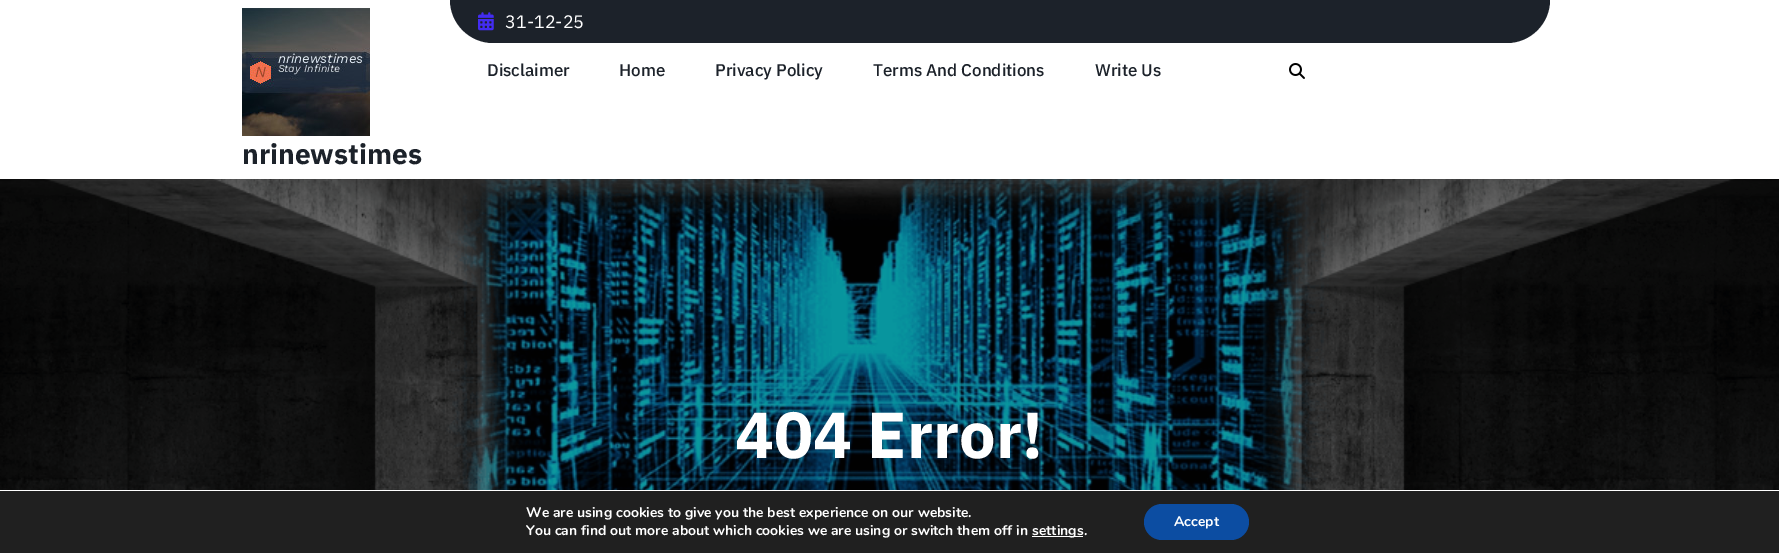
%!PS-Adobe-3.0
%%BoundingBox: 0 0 1779 553
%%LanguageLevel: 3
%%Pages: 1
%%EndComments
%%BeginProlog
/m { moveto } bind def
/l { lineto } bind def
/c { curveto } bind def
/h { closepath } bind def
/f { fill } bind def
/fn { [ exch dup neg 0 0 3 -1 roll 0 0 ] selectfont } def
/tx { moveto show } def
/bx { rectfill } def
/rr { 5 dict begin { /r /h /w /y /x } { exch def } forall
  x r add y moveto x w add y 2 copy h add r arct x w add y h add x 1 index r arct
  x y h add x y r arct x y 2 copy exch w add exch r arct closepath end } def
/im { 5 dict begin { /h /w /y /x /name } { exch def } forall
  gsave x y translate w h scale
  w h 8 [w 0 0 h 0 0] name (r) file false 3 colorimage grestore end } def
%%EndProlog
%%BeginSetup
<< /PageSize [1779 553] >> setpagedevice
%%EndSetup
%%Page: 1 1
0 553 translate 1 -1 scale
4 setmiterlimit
1 setgray
0 0 1779 553 bx
0.11 0.133 0.165 setrgbcolor
450 0 m 1550 0 l 1550 23.5 1530.5 43 1507 43 c 493 43 l 469.5 43 450 23.5 450 0 c h f
(image0.raw) 478 12 16 19 im
/IBMPlexSans-Regular 18 fn
1 setgray
(31-12-25) 505 28 tx
/IBMPlexSans-Medium 17 fn
0.11 0.133 0.165 setrgbcolor
(Disclaimer) 487 76 tx
(Home) 619 76 tx
(Privacy Policy) 715 76 tx
(Terms And Conditions) 873 76 tx
(Write Us) 1095 76 tx
(image1.raw) 1289 63 16 16 im
(image2.raw) 242 8 128 128 im
/IBMPlexSans-Bold 28 fn
(nrinewstimes) 242 164 tx
(image3.raw) 0 179 1779 311 im
/IBMPlexSans-Bold 65 fn
1 setgray
(404 Error!) 735 458 tx
0.125 setgray
0 491 1779 62 bx
/Nunito-Bold 14 fn
1 setgray
(We are using cookies to give you the best experience on our website.) 526 517 tx
(You can find out more about which cookies we are using or switch them off in) 526 535 tx
1032 536 51 1 bx
(settings.) 1032 535 tx
0.047 0.302 0.635 setrgbcolor
1144 504 105 36 18 rr f
1 setgray
(Accept) 1174 526 tx
showpage
%%EOF
